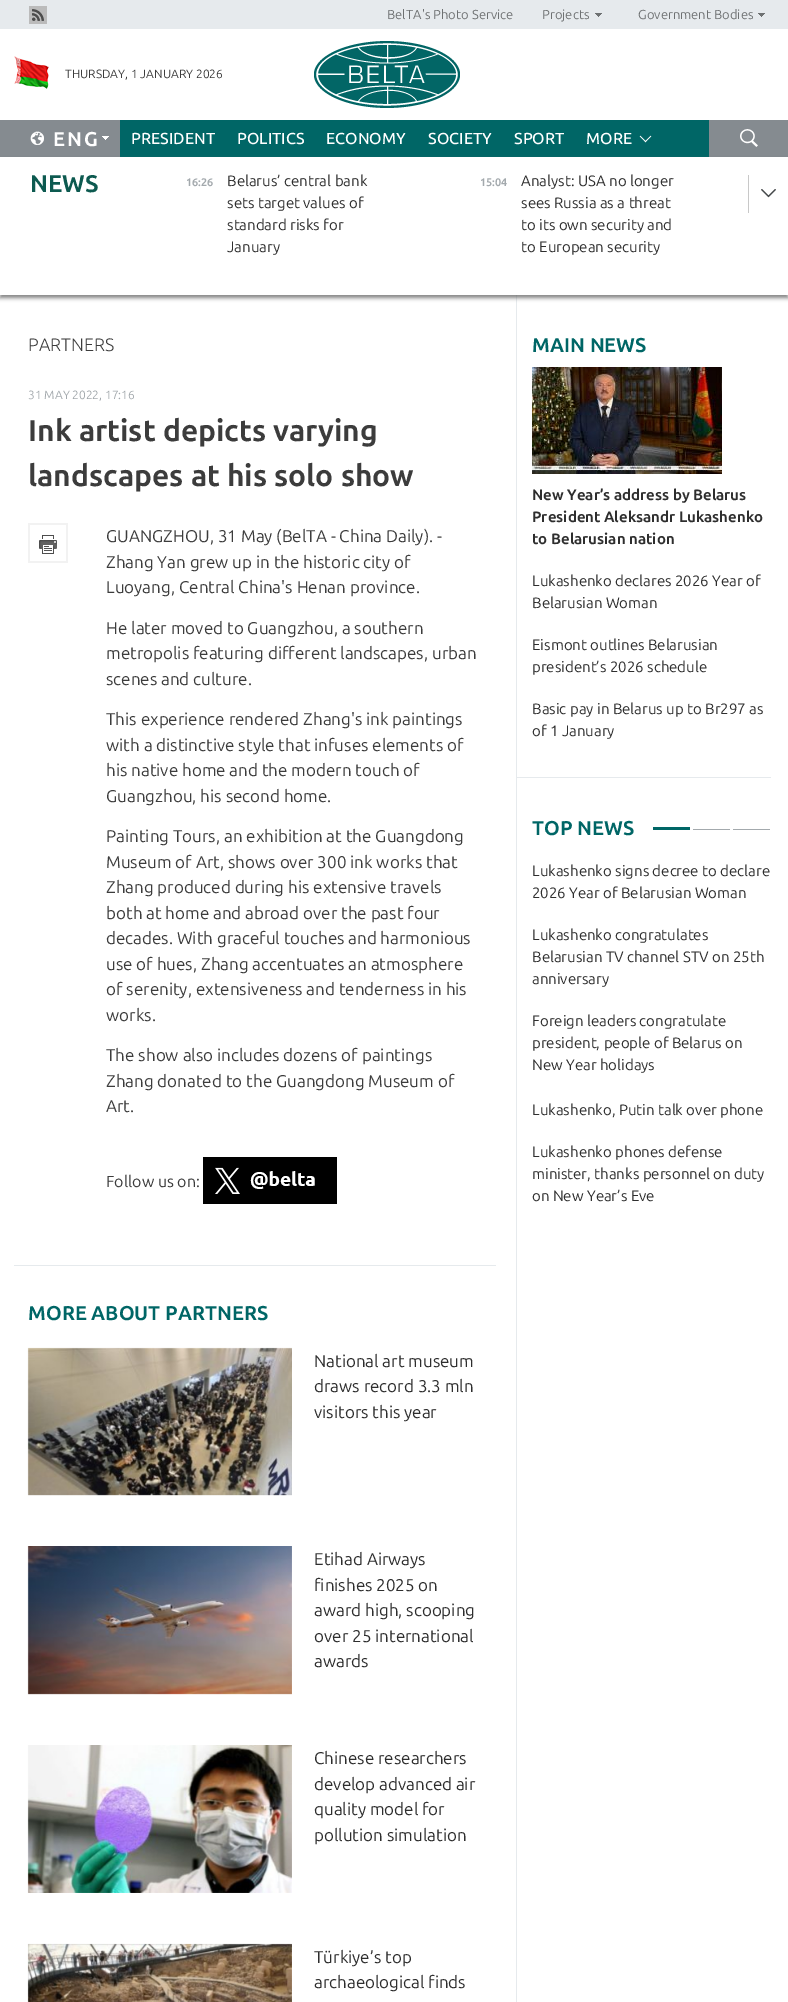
%!PS-Adobe-3.0
%%BoundingBox: 0 0 788 2002
%%LanguageLevel: 3
%%Pages: 1
%%EndComments
%%BeginProlog
/m { moveto } bind def
/l { lineto } bind def
/h { closepath } bind def
/q { gsave } bind def
/Q { grestore } bind def
/fn { [ exch dup neg 0 0 3 -1 roll 0 0 ] selectfont } def
/tx { moveto show } def
/bx { rectfill } def
/al { dup .setfillconstantalpha .setstrokeconstantalpha } def
/rr { 5 dict begin { /r /h /w /y /x } { exch def } forall
  x r add y moveto x w add y 2 copy h add r arct x w add y h add x 1 index r arct
  x y h add x y r arct x y 2 copy exch w add exch r arct closepath end } def
/sh { 12 dict begin { /a /b /q /h /w /y /x } { exch def } forall gsave /was 0 def
  9 -2 -9 { dup b mul 4 div /e exch def 1 sub .425 mul 2.718 exch exp 1 add a .99 .min exch div /now exch def
    1 1 now sub 1 was sub div sub al /was now def
    w h .min e 2 mul add 0 gt { x e sub y e sub w e 2 mul add h e 2 mul add
      q e add b .6 mul add w h .min 2 div e add .min 0 .max rr fill } if } for grestore end } def
/im { 5 dict begin { /h /w /y /x /name } { exch def } forall
  gsave x y translate w h scale
  w h 8 [w 0 0 h 0 0] name (r) file false 3 colorimage grestore end } def
%%EndProlog
%%BeginSetup
<< /PageSize [788 2002] /PageUsesTransparency true >> setpagedevice
%%EndSetup
%%Page: 1 1
0 .pushpdf14devicefilter
0 2002 translate 1 -1 scale
4 setmiterlimit
1 setgray
0 0 788 2002 bx
0.902 0.918 0.929 setrgbcolor
0 0 788 29 bx
(image0.raw) 29 6 18 18 im
/Ubuntu-Regular 13 fn
0.431 0.443 0.447 setrgbcolor
(BelTA's Photo Service) 387 19 tx
(image1.raw) 595 13 7 4 im
(Projects) 542 19 tx
(image1.raw) 758 13 7 4 im
(Government Bodies) 638 19 tx
(image2.raw) 14 56 35 33 im
/Ubuntu-Regular 12 fn
0.235 setgray
(THURSDAY, 1 JANUARY 2026) 65 78 tx
(image3.raw) 314 41 146 67 im
0 0.4 0.4 setrgbcolor
120 120 589 37 bx
0.522 0.545 0.565 setrgbcolor
0 120 120 37 bx
(image4.raw) 30 131 14 14 im
/Ubuntu-Bold 20 fn
1 setgray
53 146 m 2 0 (ENG) ashow
(image5.raw) 102 136 7 4 im
/Ubuntu-Medium 16 fn
(PRESIDENT) 131 144 tx
(POLITICS) 237 144 tx
(ECONOMY) 326 144 tx
(SOCIETY) 428 144 tx
(SPORT) 514 144 tx
(MORE) 586 144 tx
(image6.raw) 639 135 13 8 im
0.522 0.545 0.565 setrgbcolor
709 120 79 37 bx
(image7.raw) 740 129 18 18 im
0.902 0.918 0.929 setrgbcolor
516 295 1 1707 bx
q
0 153 m 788 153 l 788 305 l 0 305 l h 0 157 m 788 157 l 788 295 l 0 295 l h eoclip newpath
0.392 setgray
0 160 788 138 0 2 0.8 sh
Q
/Ubuntu-Bold 24 fn
0.051 0.353 0.314 setrgbcolor
(NEWS) 30 192 tx
/Ubuntu-Bold 11 fn
0.639 0.663 0.678 setrgbcolor
(16:26) 186 186 tx
/Ubuntu-Regular 15 fn
0.18 setgray
(Belarus’ central bank) 227 186 tx
(sets target values of) 227 208 tx
(standard risks for) 227 230 tx
(January) 227 252 tx
/Ubuntu-Bold 11 fn
0.639 0.663 0.678 setrgbcolor
(15:04) 480 186 tx
/Ubuntu-Regular 15 fn
0.18 setgray
(Analyst: USA no longer) 521 186 tx
(sees Russia as a threat) 521 208 tx
(to its own security and) 521 230 tx
(to European security) 521 252 tx
(image8.raw) 761 189 15 9 im
0.784 setgray
748 175 1 38 bx
/Ubuntu-Light 18 fn
0.235 setgray
(PARTNERS) 28 351 tx
/Ubuntu-Regular 12 fn
0.639 0.663 0.678 setrgbcolor
(31 MAY 2022, 17:16) 28 399 tx
/Ubuntu-Bold 30 fn
0.235 setgray
(Ink artist depicts varying) 28 441 tx
(landscapes at his solo show) 28 486 tx
(image9.raw) 28 523 40 40 im
/Ubuntu-Regular 17 fn
(GUANGZHOU, 31 May \(BelTA - China Daily\). -) 106 542 tx
(Zhang Yan grew up in the historic city of) 106 568 tx
(Luoyang, Central China's Henan province.) 106 593 tx
(He later moved to Guangzhou, a southern) 106 634 tx
(metropolis featuring different landscapes, urban) 106 659 tx
(scenes and culture.) 106 685 tx
(This experience rendered Zhang's ink paintings) 106 725 tx
(with a distinctive style that infuses elements of) 106 751 tx
(his native home and the modern touch of) 106 776 tx
(Guangzhou, his second home.) 106 802 tx
(Painting Tours, an exhibition at the Guangdong) 106 842 tx
(Museum of Art, shows over 300 ink works that) 106 868 tx
(Zhang produced during his extensive travels) 106 893 tx
(both at home and abroad over the past four) 106 919 tx
(decades. With graceful touches and harmonious) 106 944 tx
(use of hues, Zhang accentuates an atmosphere) 106 970 tx
(of serenity, extensiveness and tenderness in his) 106 995 tx
(works.) 106 1021 tx
(The show also includes dozens of paintings) 106 1061 tx
(Zhang donated to the Guangdong Museum of) 106 1087 tx
(Art.) 106 1112 tx
/Ubuntu-Regular 16 fn
(Follow us on:) 106 1187 tx
(image10.raw) 203 1157 134 47 im
0.902 0.918 0.929 setrgbcolor
14 1265 482 1 bx
/Ubuntu-Bold 20 fn
0 0.4 0.4 setrgbcolor
(MORE ABOUT PARTNERS) 28 1320 tx
(image11.raw) 27 1347 265 149 im
/Ubuntu-Regular 17 fn
0.18 setgray
(National art museum) 314 1367 tx
(draws record 3.3 mln) 314 1392 tx
(visitors this year) 314 1418 tx
(image12.raw) 27 1546 265 149 im
(Etihad Airways) 314 1565 tx
(finishes 2025 on) 314 1591 tx
(award high, scooping) 314 1616 tx
(over 25 international) 314 1642 tx
(awards) 314 1667 tx
(image13.raw) 27 1745 265 148 im
(Chinese researchers) 314 1764 tx
(develop advanced air) 314 1790 tx
(quality model for) 314 1815 tx
(pollution simulation) 314 1841 tx
(image14.raw) 27 1943 265 59 im
(Türkiye’s top) 314 1963 tx
(archaeological finds) 314 1988 tx
0.902 0.918 0.929 setrgbcolor
516 777 255 1 bx
/Ubuntu-Bold 20 fn
0 0.4 0.4 setrgbcolor
(MAIN NEWS) 532 352 tx
(image15.raw) 532 367 190 107 im
/Ubuntu-Bold 15 fn
0.18 setgray
(New Year’s address by Belarus) 532 500 tx
(President Aleksandr Lukashenko) 532 522 tx
(to Belarusian nation) 532 544 tx
/Ubuntu-Regular 15 fn
(Lukashenko declares 2026 Year of) 532 586 tx
(Belarusian Woman) 532 608 tx
(Eismont outlines Belarusian) 532 650 tx
(president’s 2026 schedule) 532 672 tx
(Basic pay in Belarus up to Br297 as) 532 714 tx
(of 1 January) 532 736 tx
/Ubuntu-Bold 20 fn
0 0.4 0.4 setrgbcolor
(TOP NEWS) 532 835 tx
653 827 37 3 bx
0.639 0.663 0.678 setrgbcolor
693 829 37 1 bx
733 829 37 1 bx
/Ubuntu-Regular 15 fn
0.18 setgray
(Lukashenko signs decree to declare) 532 876 tx
(2026 Year of Belarusian Woman) 532 898 tx
(Lukashenko congratulates) 532 940 tx
(Belarusian TV channel STV on 25th) 532 962 tx
(anniversary) 532 984 tx
(Foreign leaders congratulate) 532 1026 tx
(president, people of Belarus on) 532 1048 tx
(New Year holidays) 532 1070 tx
(Lukashenko, Putin talk over phone) 532 1115 tx
(Lukashenko phones defense) 532 1157 tx
(minister, thanks personnel on duty) 532 1179 tx
(on New Year’s Eve) 532 1201 tx
.poppdf14devicefilter showpage
%%EOF
